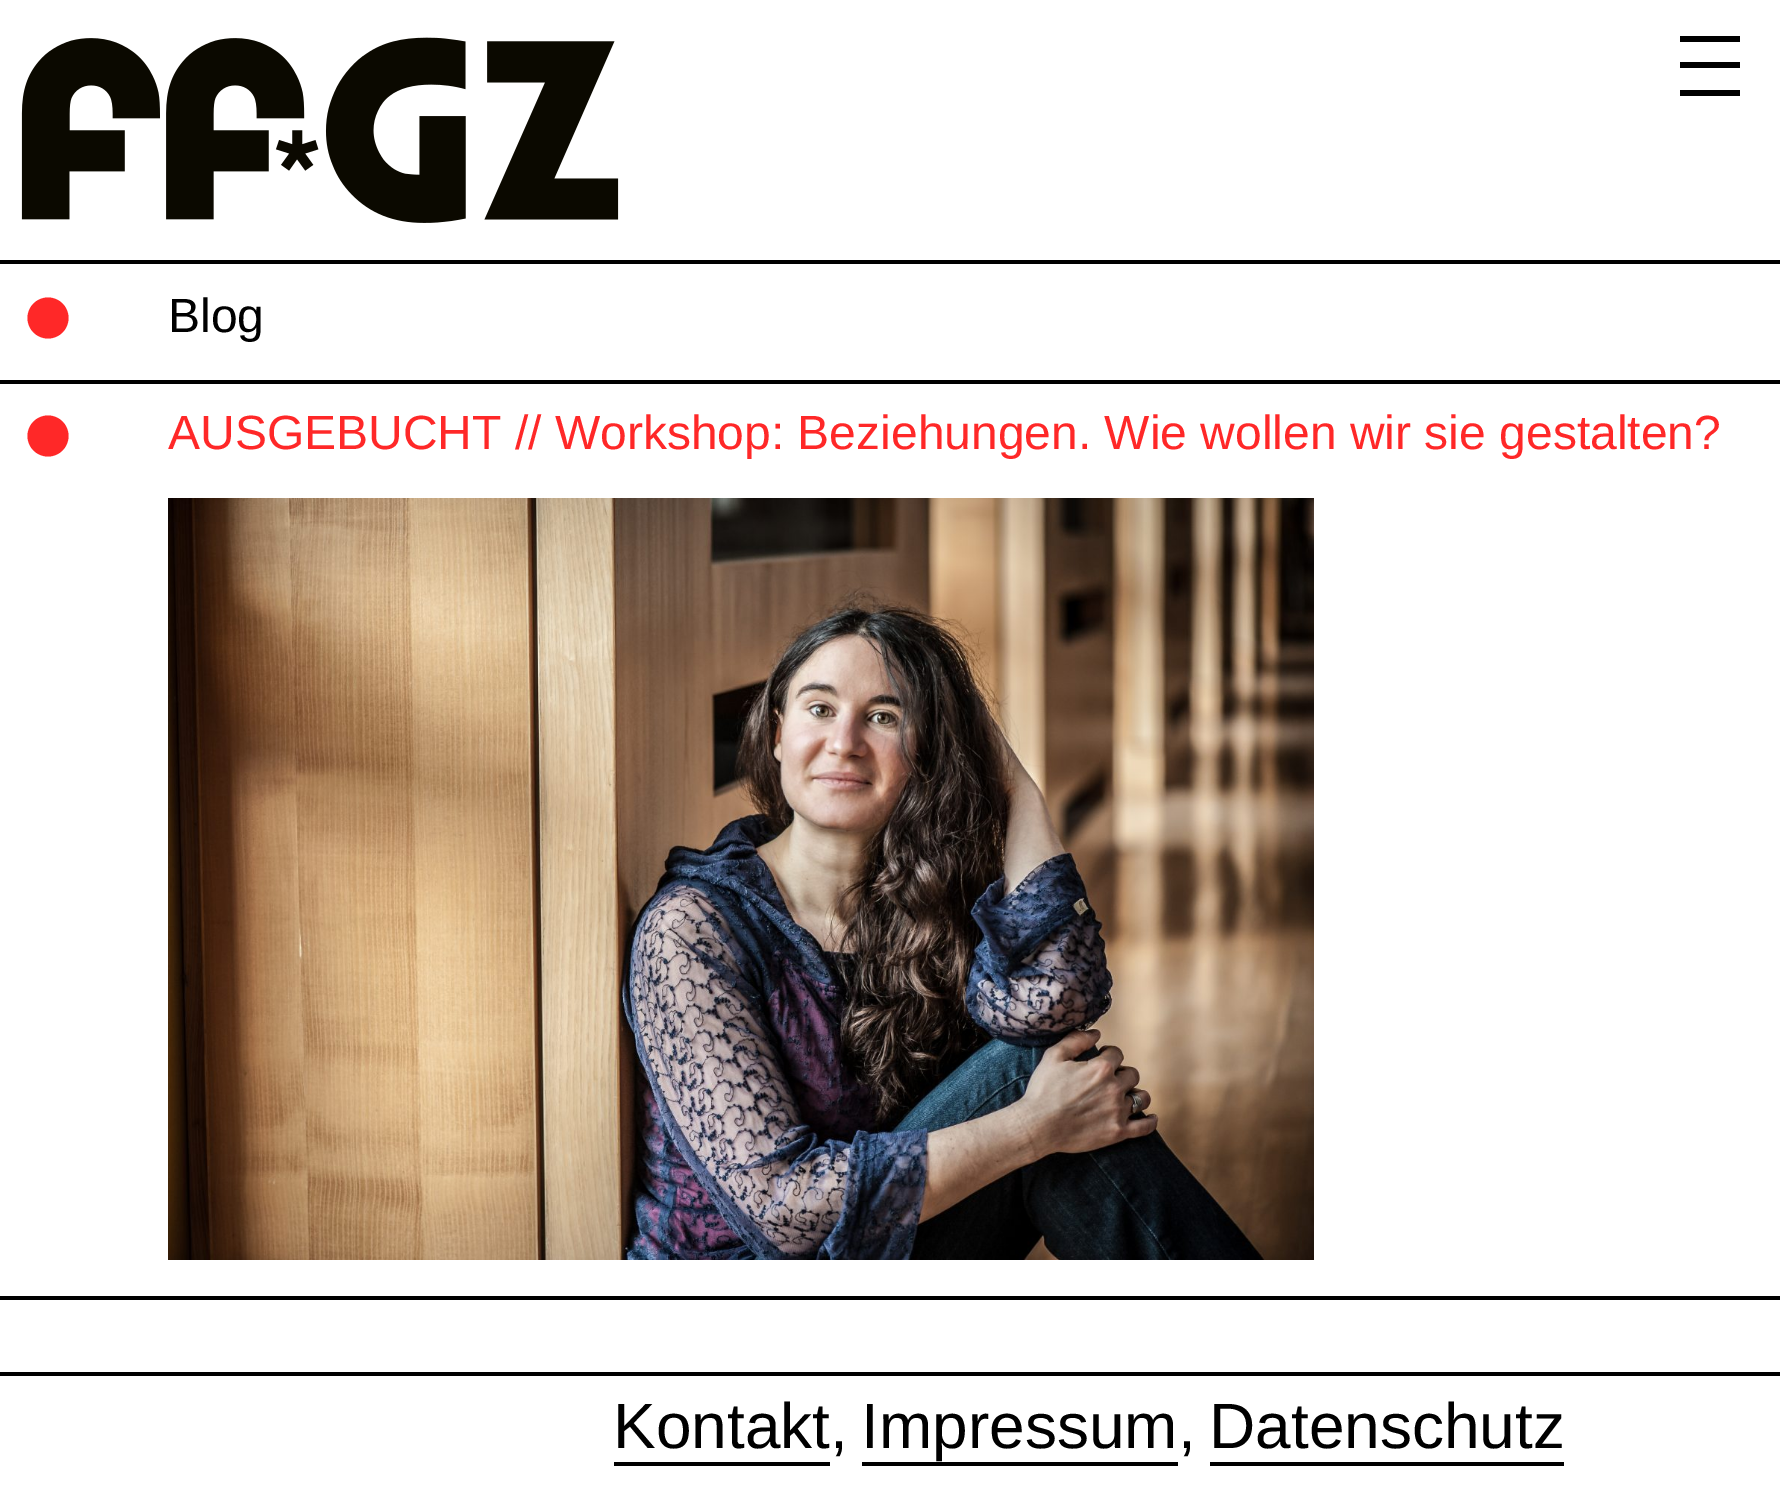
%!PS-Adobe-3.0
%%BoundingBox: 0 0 1780 1511
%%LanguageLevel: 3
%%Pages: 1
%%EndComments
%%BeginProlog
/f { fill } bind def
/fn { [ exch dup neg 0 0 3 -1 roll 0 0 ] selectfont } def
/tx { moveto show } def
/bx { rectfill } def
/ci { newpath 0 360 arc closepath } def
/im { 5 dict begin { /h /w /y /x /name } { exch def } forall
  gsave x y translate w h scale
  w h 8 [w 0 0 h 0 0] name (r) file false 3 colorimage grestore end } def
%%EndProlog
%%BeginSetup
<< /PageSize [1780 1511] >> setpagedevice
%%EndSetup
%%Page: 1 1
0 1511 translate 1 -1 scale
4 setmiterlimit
1 setgray
0 0 1780 1511 bx
0 setgray
0 260 1780 4 bx
(image0.raw) 21 37 598 186 im
1680 36 60 6 bx
1680 62 60 6 bx
1680 90 60 6 bx
0 380 1780 4 bx
1 0.157 0.157 setrgbcolor
48 318 20.5 ci f
/LiberationSans-Regular 48 fn
0 setgray
(Blog) 168 332 tx
0 1296 1780 4 bx
1 0.157 0.157 setrgbcolor
48 436 20.5 ci f
(AUSGEBUCHT // Workshop: Beziehungen. Wie wollen wir sie gestalten?) 168 449 tx
(image1.raw) 168 498 1146 762 im
0 setgray
0 1372 1780 4 bx
/LiberationSans-Regular 64 fn
(Kontakt,) 613 1448 tx
614 1462 216 4 bx
(Impressum,) 861 1448 tx
862 1462 316 4 bx
(Datenschutz) 1209 1448 tx
1210 1462 354 4 bx
showpage
%%EOF
